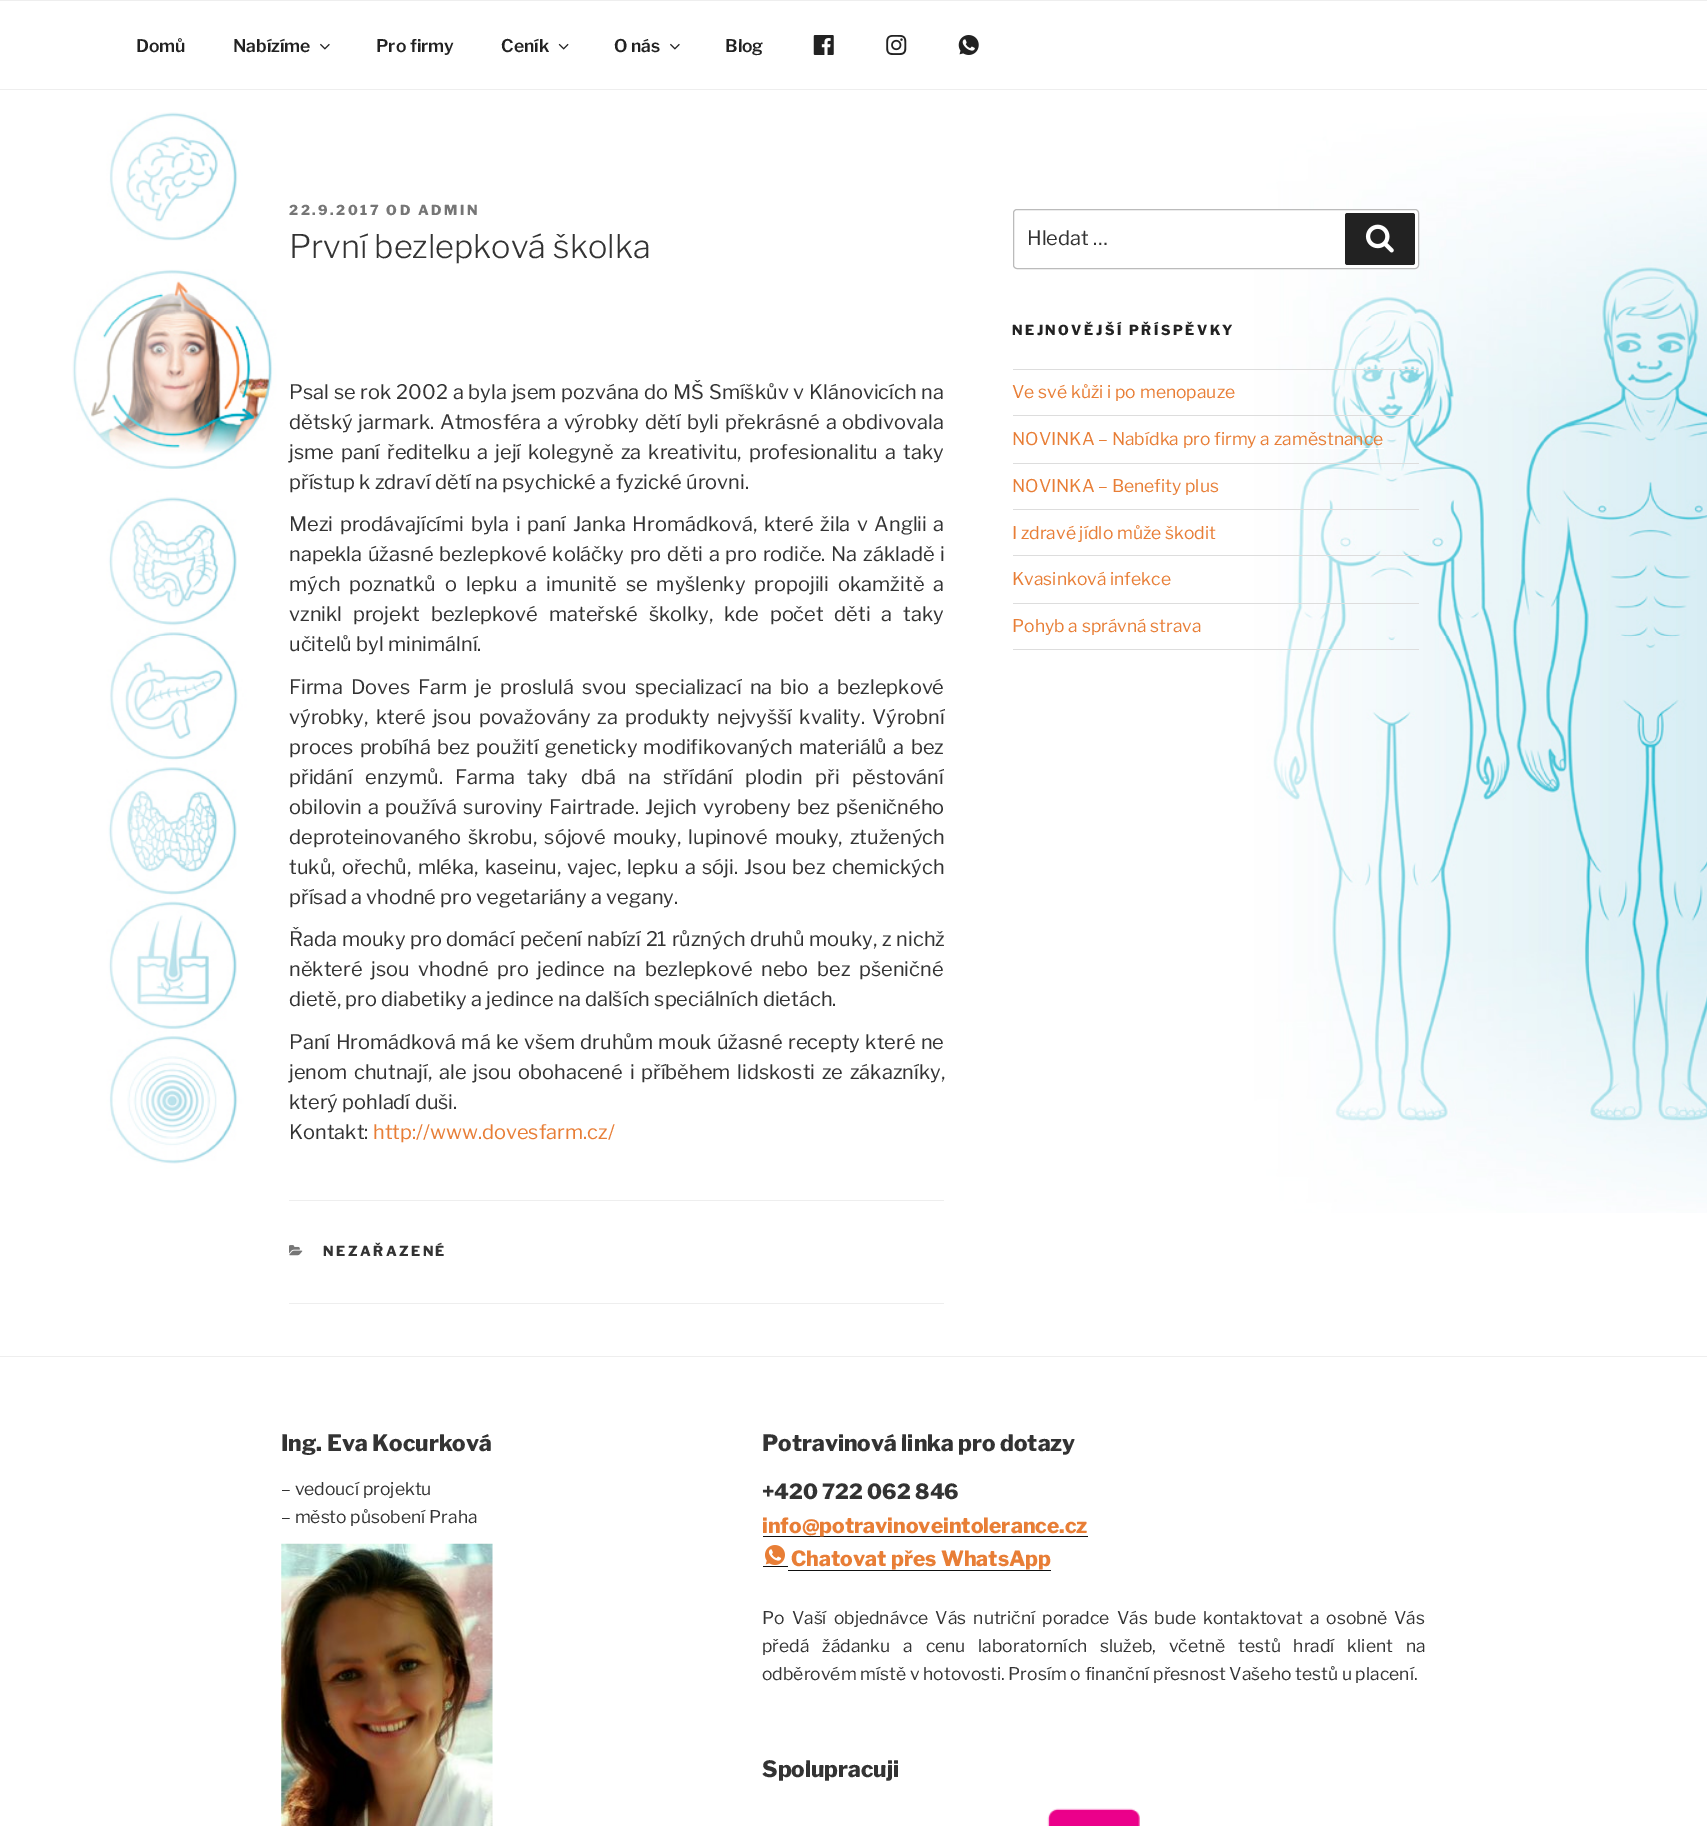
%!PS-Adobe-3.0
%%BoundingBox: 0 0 1707 1826
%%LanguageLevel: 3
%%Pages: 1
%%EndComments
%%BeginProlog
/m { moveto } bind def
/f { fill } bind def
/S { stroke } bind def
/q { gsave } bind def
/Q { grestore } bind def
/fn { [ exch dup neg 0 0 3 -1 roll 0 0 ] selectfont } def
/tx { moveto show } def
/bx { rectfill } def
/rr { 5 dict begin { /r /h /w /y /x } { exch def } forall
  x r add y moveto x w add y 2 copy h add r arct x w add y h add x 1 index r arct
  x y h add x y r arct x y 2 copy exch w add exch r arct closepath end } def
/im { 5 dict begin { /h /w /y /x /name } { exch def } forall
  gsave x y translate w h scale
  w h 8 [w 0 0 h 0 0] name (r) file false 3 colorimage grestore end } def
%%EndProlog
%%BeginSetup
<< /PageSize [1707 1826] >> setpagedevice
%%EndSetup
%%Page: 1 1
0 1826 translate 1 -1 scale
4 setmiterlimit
1 setgray
0 0 1707 1826 bx
0.933 setgray
0 0 1707 1 bx
0 89 1707 1 bx
/LibreFranklin-SemiBold 17.5 fn
0.133 setgray
(Domů) 136 52 tx
(Nabízíme) 233 52 tx
(image0.raw) 320 43 10 7 im
(Pro firmy) 376 52 tx
(Ceník) 501 52 tx
(image1.raw) 558 43 11 7 im
(O nás) 614 52 tx
(image0.raw) 670 43 10 7 im
(Blog) 725 52 tx
(image2.raw) 813 35 21 20 im
(image3.raw) 886 35 21 20 im
(image4.raw) 958 35 21 20 im
(image5.raw) 72 112 1635 1101 im
/LibreFranklin-ExtraBold 13.75 fn
0.463 setgray
289 215 m 2.5 0 (22.9.2017 OD ADMIN) ashow
/LibreFranklin-Light 32.5 fn
0.2 setgray
(První bezlepková školka) 289 258 tx
/LibreFranklin-Regular 20 fn
289 399 m 0.6 0 32 (Psal se rok 2002 a byla jsem pozvána do MŠ Smíškův v Klánovicích na) widthshow
289 429 m 1.75 0 32 (dětský jarmark. Atmosféra a výrobky dětí byli překrásné a obdivovala) widthshow
289 459 m 2.75 0 32 (jsme paní ředitelku a její kolegyně za kreativitu, profesionalitu a taky) widthshow
(přístup k zdraví dětí na psychické a fyzické úrovni.) 289 489 tx
289 531 m 2.25 0 32 (Mezi prodávajícími byla i paní Janka Hromádková, které žila v Anglii a) widthshow
289 561 m 1.4 0 32 (napekla úžasné bezlepkové koláčky pro děti a pro rodiče. Na základě i) widthshow
289 591 m 4.75 0 32 (mých poznatků o lepku a imunitě se myšlenky propojili okamžitě a) widthshow
289 621 m 6.5 0 32 (vznikl projekt bezlepkové mateřské školky, kde počet děti a taky) widthshow
(učitelů byl minimální.) 289 651 tx
289 694 m 4 0 32 (Firma Doves Farm je proslulá svou specializací na bio a bezlepkové) widthshow
289 724 m 3 0 32 (výrobky, které jsou považovány za produkty nejvyšší kvality. Výrobní) widthshow
289 754 m 2 0 32 (proces probíhá bez použití geneticky modifikovaných materiálů a bez) widthshow
289 784 m 8.25 0 32 (přidání enzymů. Farma taky dbá na střídání plodin při pěstování) widthshow
289 814 m 2 0 32 (obilovin a používá suroviny Fairtrade. Jejich vyrobeny bez pšeničného) widthshow
289 844 m 3 0 32 (deproteinovaného škrobu, sójové mouky, lupinové mouky, ztužených) widthshow
289 874 m 2 0 32 (tuků, ořechů, mléka, kaseinu, vajec, lepku a sóji. Jsou bez chemických) widthshow
(přísad a vhodné pro vegetariány a vegany.) 289 904 tx
289 946 m 0.5 0 32 (Řada mouky pro domácí pečení nabízí 21 různých druhů mouky, z nichž) widthshow
289 976 m 4.5 0 32 (některé jsou vhodné pro jedince na bezlepkové nebo bez pšeničné) widthshow
(dietě, pro diabetiky a jedince na dalších speciálních dietách.) 289 1006 tx
289 1049 m 1.1 0 32 (Paní Hromádková má ke všem druhům mouk úžasné recepty které ne) widthshow
289 1079 m 2.5 0 32 (jenom chutnají, ale jsou obohacené i příběhem lidskosti ze zákazníky,) widthshow
(který pohladí duši.) 289 1109 tx
(Kontakt:) 289 1139 tx
0.91 0.494 0.212 setrgbcolor
(http://www.dovesfarm.cz/) 373 1139 tx
0.933 setgray
289 1200 655 1 bx
289 1303 655 1 bx
(image6.raw) 289 1245 14 11 im
/LibreFranklin-ExtraBold 13.75 fn
0.2 setgray
323 1256 m 2.5 0 (NEZAŘAZENÉ) ashow
1 setgray
1013.5 209.5 405 59 3.5 rr q f Q
0.733 setgray
S
/LibreFranklin-Regular 20 fn
0.2 setgray
(Hledat …) 1027 245 tx
0.133 setgray
1345 213 70 52 2.5 rr f
(image7.raw) 1365 224 29 29 im
/LibreFranklin-ExtraBold 13.75 fn
1012 335 m 2.5 0 (NEJNOVĚJŠÍ PŘÍSPĚVKY) ashow
0.867 setgray
1013 369 406 1 bx
1013 415 406 1 bx
/LibreFranklin-Regular 17.5 fn
0.91 0.494 0.212 setrgbcolor
(Ve své kůži i po menopauze) 1012 398 tx
0.867 setgray
1013 463 406 1 bx
0.91 0.494 0.212 setrgbcolor
(NOVINKA – Nabídka pro firmy a zaměstnance) 1012 445 tx
1 setgray
1286 448 98 1 bx
0.867 setgray
1013 509 406 1 bx
0.91 0.494 0.212 setrgbcolor
(NOVINKA – Benefity plus) 1012 492 tx
0.867 setgray
1013 555 406 1 bx
0.91 0.494 0.212 setrgbcolor
(I zdravé jídlo může škodit) 1012 539 tx
0.867 setgray
1013 603 406 1 bx
0.91 0.494 0.212 setrgbcolor
(Kvasinková infekce) 1012 585 tx
0.867 setgray
1013 649 406 1 bx
0.91 0.494 0.212 setrgbcolor
(Pohyb a správná strava) 1012 632 tx
0.933 setgray
0 1356 1707 1 bx
/LibreFranklin-ExtraBold 22.5 fn
0.2 setgray
(Ing. Eva Kocurková) 281 1451 tx
/LibreFranklin-Regular 17.5 fn
(– vedoucí projektu) 281 1495 tx
(– město působení Praha) 281 1523 tx
(image8.raw) 281 1543 212 283 im
/LibreFranklin-ExtraBold 22.5 fn
(Potravinová linka pro dotazy) 762 1451 tx
/LibreFranklin-ExtraBold 21 fn
(+420 722 062 846) 762 1499 tx
0.059 setgray
763 1536 325 1 bx
0.91 0.494 0.212 setrgbcolor
(info@potravinoveintolerance.cz) 762 1533 tx
0.059 setgray
763 1566 25 1 bx
788 1570 263 1 bx
(image9.raw) 765 1545 20 20 im
0.91 0.494 0.212 setrgbcolor
(Chatovat přes WhatsApp) 791 1566 tx
/LibreFranklin-Regular 17.5 fn
0.2 setgray
762 1624 m 3.25 0 32 (Po Vaší objednávce Vás nutriční poradce Vás bude kontaktovat a osobně Vás) widthshow
762 1652 m 9 0 32 (předá žádanku a cenu laboratorních služeb, včetně testů hradí klient na) widthshow
(odběrovém místě v hotovosti. Prosím o finanční přesnost Vašeho testů u placení.) 762 1680 tx
/LibreFranklin-ExtraBold 22.5 fn
(Spolupracuji) 762 1777 tx
(image10.raw) 1047 1808 93 18 im
showpage
%%EOF
